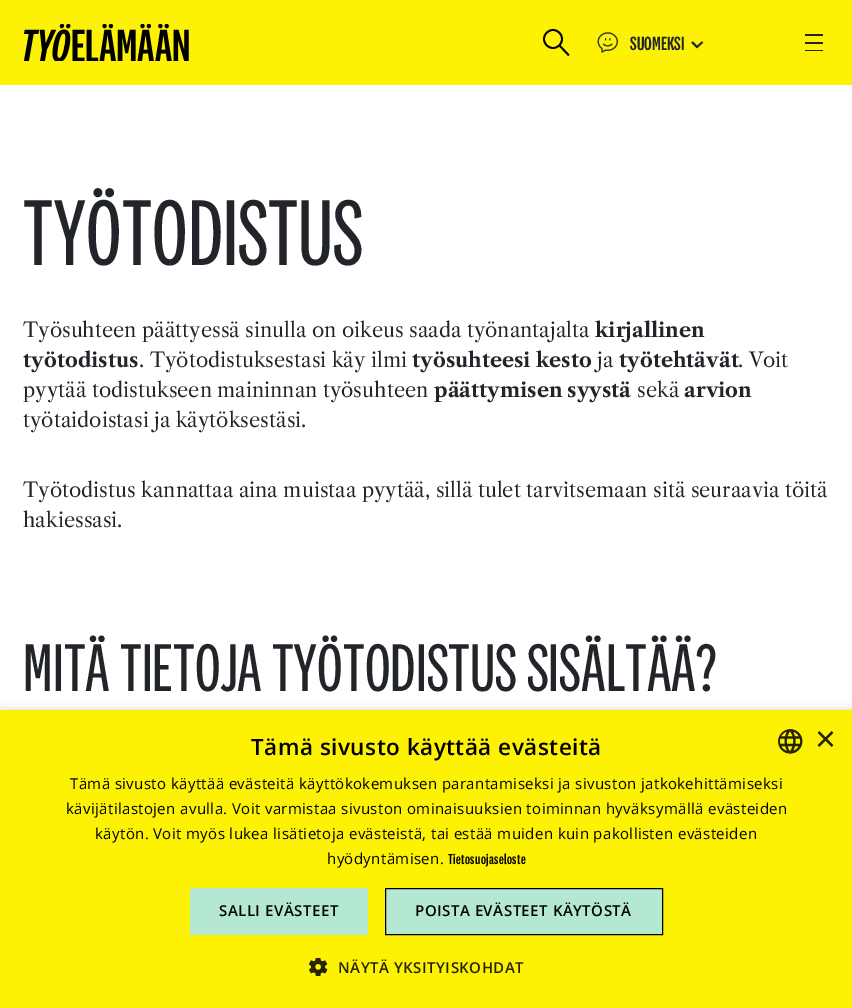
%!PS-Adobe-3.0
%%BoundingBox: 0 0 852 1008
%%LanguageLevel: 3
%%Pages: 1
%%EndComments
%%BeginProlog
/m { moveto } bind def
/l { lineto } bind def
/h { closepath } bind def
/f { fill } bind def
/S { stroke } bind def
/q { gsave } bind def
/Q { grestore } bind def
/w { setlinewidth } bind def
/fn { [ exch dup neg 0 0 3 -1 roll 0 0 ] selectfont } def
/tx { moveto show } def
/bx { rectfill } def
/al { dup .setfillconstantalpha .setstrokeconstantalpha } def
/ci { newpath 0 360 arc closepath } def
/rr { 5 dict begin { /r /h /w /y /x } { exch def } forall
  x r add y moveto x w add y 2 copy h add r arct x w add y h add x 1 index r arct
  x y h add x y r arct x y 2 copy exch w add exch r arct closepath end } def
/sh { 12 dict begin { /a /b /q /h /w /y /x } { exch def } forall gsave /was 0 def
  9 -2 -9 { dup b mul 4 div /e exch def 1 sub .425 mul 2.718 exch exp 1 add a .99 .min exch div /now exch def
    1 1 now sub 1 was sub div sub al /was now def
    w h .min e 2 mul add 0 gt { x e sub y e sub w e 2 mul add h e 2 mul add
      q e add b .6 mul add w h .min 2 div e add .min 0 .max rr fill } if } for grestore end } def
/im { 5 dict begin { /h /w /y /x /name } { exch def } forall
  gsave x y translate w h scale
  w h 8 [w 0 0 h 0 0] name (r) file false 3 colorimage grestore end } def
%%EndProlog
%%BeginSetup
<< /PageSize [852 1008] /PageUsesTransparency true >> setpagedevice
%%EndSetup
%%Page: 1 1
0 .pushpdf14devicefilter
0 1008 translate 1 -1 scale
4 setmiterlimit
1 setgray
0 0 852 1008 bx
0.996 0.949 0.016 setrgbcolor
0 0 852 85 bx
(image0.raw) 24 24 165 37 im
0 setgray
1.8 w
553 39 9 ci S
1 setlinecap
1 setlinejoin
559.5 45.5 m 568.5 55 l S
(image1.raw) 597 32 21 21 im
/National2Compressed-Medium 20 fn
0.129 0.145 0.161 setrgbcolor
(SUOMEKSI) 630 50 tx
0 setlinecap
0 setlinejoin
692 42 m 697 47 l 702.5 42 l S
805 34 18 2 bx
805 42 18 2 bx
805 50 18 1 bx
/National2Compressed-Regular 97 fn
(TYÖTODISTUS) 23 265 tx
/LibreCaslonText-Regular 20 fn
(Työsuhteen päättyessä sinulla on oikeus saada työnantajalta) 23 337 tx
/LibreCaslonText-Bold 20 fn
(kirjallinen) 595 337 tx
(työtodistus) 23 367 tx
/LibreCaslonText-Regular 20 fn
(. Työtodistuksestasi käy ilmi) 139 367 tx
/LibreCaslonText-Bold 20 fn
(työsuhteesi kesto) 412 367 tx
/LibreCaslonText-Regular 20 fn
(ja) 597 367 tx
/LibreCaslonText-Bold 20 fn
(työtehtävät) 619 367 tx
/LibreCaslonText-Regular 20 fn
(. Voit) 738 367 tx
(pyytää todistukseen maininnan työsuhteen) 23 397 tx
/LibreCaslonText-Bold 20 fn
(päättymisen syystä) 434 397 tx
/LibreCaslonText-Regular 20 fn
(sekä) 637 397 tx
/LibreCaslonText-Bold 20 fn
(arvion) 684 397 tx
/LibreCaslonText-Regular 20 fn
(työtaidoistasi ja käytöksestäsi.) 23 427 tx
(Työtodistus kannattaa aina muistaa pyytää, sillä tulet tarvitsemaan sitä seuraavia töitä) 23 497 tx
(hakiessasi.) 23 527 tx
/National2Compressed-Regular 70 fn
(MITÄ TIETOJA TYÖTODISTUS SISÄLTÄÄ?) 23 691 tx
0 setgray
1 713 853 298 0 5 0.35 sh
0.996 0.949 0.016 setrgbcolor
0 710 852 298 bx
/OpenSans-SemiBold 22.5 fn
0 setgray
251 755 m 0.5 0 (Tämä sivusto käyttää evästeitä) ashow
(image2.raw) 778 729 25 25 im
/LiberationSans-Regular 36 fn
0.149 0.141 0.004 setrgbcolor
(×) 815 751 tx
/OpenSans-Regular 15 fn
0 setgray
70 789 m 0.38 0 (Tämä sivusto käyttää evästeitä käyttökokemuksen parantamiseksi ja sivuston jatkokehittämiseksi) ashow
66 814 m 0.38 0 (kävijätilastojen avulla. Voit varmistaa sivuston ominaisuuksien toiminnan hyväksymällä evästeiden) ashow
95 839 m 0.38 0 (käytön. Voit myös lukea lisätietoja evästeistä, tai estää muiden kuin pakollisten evästeiden) ashow
327 864 m 0.38 0 (hyödyntämisen.) ashow
/National2Compressed-Medium 15 fn
448 864 m 0.38 0 (Tietosuojaseloste) ashow
0.71 0.91 0.827 setrgbcolor
190 888 178 47 bx
/OpenSans-SemiBold 15 fn
0 setgray
219 916 m 0.5 0 (SALLI EVÄSTEET) ashow
0.71 0.91 0.827 setrgbcolor
385.5 888.5 m 662.5 888.5 l 662.5 934.5 l 385.5 934.5 l h q f Q
0 setgray
1 w
S
415 916 m 0.5 0 (POISTA EVÄSTEET KÄYTÖSTÄ) ashow
(image3.raw) 309 958 19 18 im
0.149 0.141 0.004 setrgbcolor
338 973 m 0.5 0 (NÄYTÄ YKSITYISKOHDAT) ashow
.poppdf14devicefilter showpage
%%EOF
